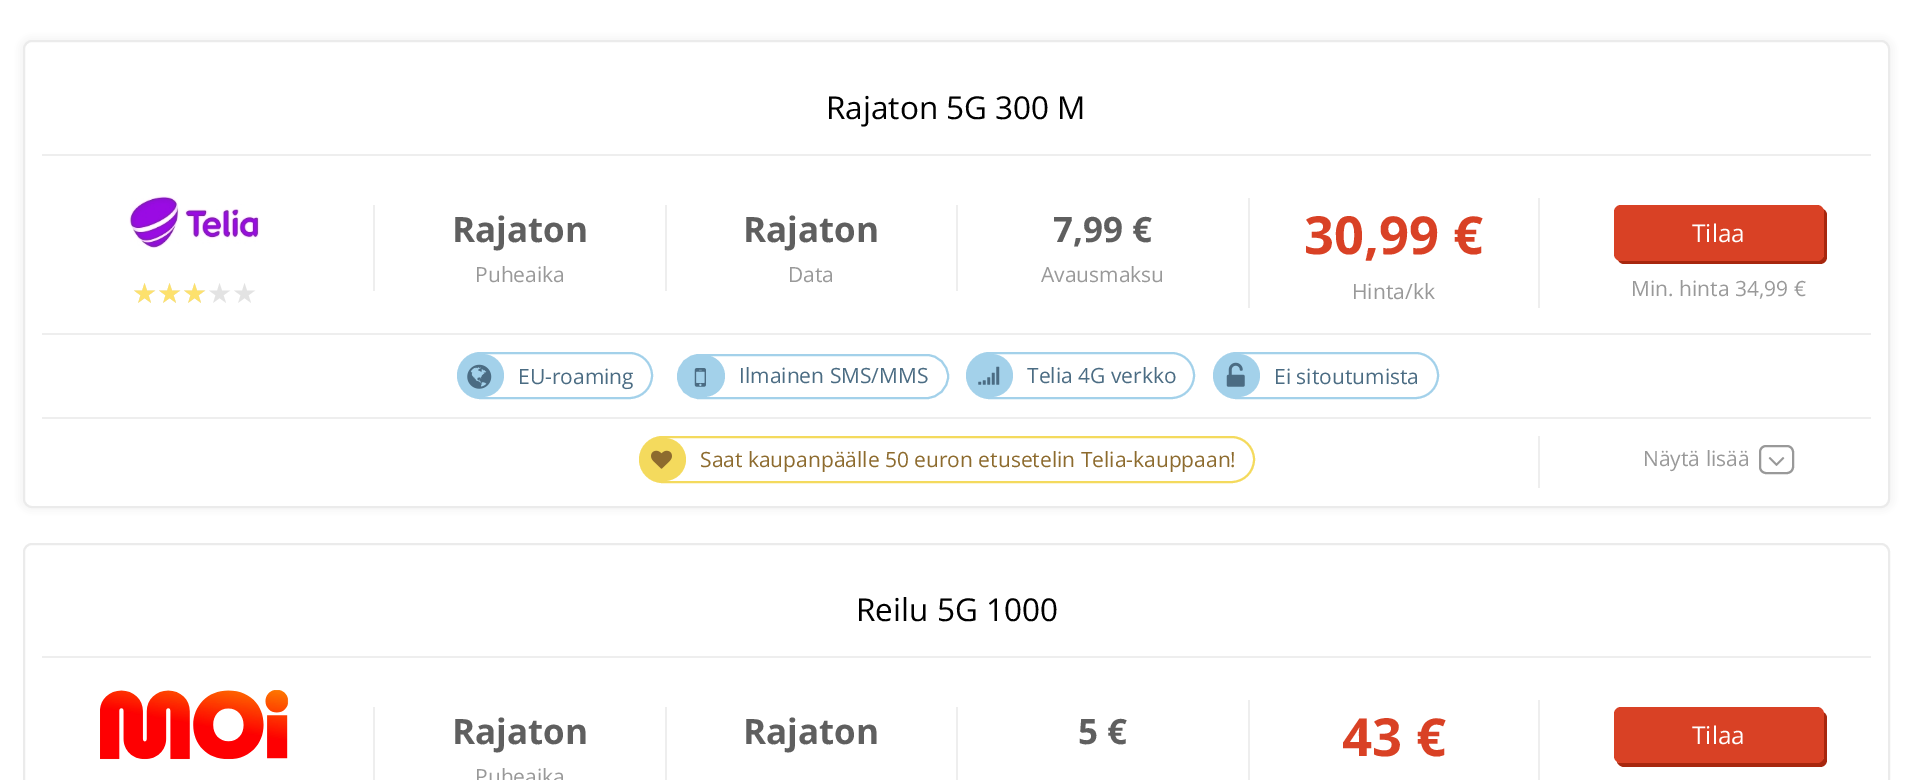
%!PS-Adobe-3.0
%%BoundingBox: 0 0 1912 780
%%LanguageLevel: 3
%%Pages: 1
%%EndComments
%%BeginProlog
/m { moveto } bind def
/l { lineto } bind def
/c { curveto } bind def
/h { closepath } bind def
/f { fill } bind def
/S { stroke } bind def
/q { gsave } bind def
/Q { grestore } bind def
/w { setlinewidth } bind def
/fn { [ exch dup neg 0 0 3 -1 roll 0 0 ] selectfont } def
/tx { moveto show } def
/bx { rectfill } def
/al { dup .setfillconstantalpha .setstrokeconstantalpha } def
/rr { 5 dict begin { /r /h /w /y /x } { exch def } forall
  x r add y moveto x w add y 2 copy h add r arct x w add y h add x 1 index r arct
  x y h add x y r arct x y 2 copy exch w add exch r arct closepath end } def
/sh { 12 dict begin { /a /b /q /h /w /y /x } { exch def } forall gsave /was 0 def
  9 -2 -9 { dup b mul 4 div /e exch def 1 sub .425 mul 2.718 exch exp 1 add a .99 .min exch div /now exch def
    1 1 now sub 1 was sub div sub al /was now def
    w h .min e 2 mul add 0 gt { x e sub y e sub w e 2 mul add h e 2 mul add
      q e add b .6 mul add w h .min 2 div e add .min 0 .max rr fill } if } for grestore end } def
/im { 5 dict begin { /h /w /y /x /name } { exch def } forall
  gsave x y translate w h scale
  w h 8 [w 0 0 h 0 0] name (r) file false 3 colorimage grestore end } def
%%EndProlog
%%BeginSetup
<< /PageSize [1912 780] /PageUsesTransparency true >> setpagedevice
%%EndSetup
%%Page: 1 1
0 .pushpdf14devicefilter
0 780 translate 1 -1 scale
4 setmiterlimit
1 setgray
0 0 1912 780 bx
0.502 setgray
19 37 1875 474 12 4.5 0.1 sh
1 setgray
24 41 1865 466 8 rr q f Q
0.922 setgray
2 w
S
/OpenSans-Regular 31.5 fn
0 setgray
(Rajaton 5G 300 M) 826 119 tx
0.933 setgray
42 154 1829 2 bx
(image0.raw) 129 196 131 52 im
/DejaVuSans-Regular 28 fn
0.89 setgray
(★★★★★) 132 303 tx
0.992 0.882 0.427 setrgbcolor
(★★★) 132 303 tx
0.933 setgray
373 205 2 86 bx
/OpenSans-Bold 35 fn
0.373 setgray
(Rajaton) 452 242 tx
/OpenSans-Regular 21 fn
0.6 setgray
(Puheaika) 475 282 tx
0.933 setgray
665 205 2 86 bx
/OpenSans-Bold 35 fn
0.373 setgray
(Rajaton) 743 242 tx
/OpenSans-Regular 21 fn
0.6 setgray
(Data) 788 282 tx
0.933 setgray
956 205 2 86 bx
/OpenSans-Bold 35 fn
0.373 setgray
(7,99 €) 1053 242 tx
/OpenSans-Regular 21 fn
0.6 setgray
(Avausmaksu) 1041 282 tx
0.933 setgray
1538 198 2 110 bx
1248 198 2 110 bx
/OpenSans-Bold 52.5 fn
0.851 0.255 0.145 setrgbcolor
(30,99 €) 1304 254 tx
/OpenSans-Regular 21 fn
0.6 setgray
(Hinta/kk) 1352 299 tx
0.655 0.153 0.055 setrgbcolor
1618 260 m 1619 262 1621 264 1624 264 c 1820 264 l 1824 264 1827 261 1827 257 c 1827 215 l 1827 212 1825 210 1823 209 c 1824 212 l 1824 254 l 1824 258 1820 261 1816 261 c 1620 261 l h f
0.851 0.255 0.145 setrgbcolor
1614 205 210 56 7 rr f
/OpenSans-Regular 24.5 fn
1 setgray
(Tilaa) 1692 242 tx
/OpenSans-Regular 21 fn
0.6 setgray
(Min. hinta 34,99 €) 1631 296 tx
0.933 setgray
42 333 1829 2 bx
0.639 0.82 0.918 setrgbcolor
458 353 194 45 22.5 rr S
q
459 354 192 43 21.5 rr clip newpath
450 354 54 43 21.5 rr f
Q
(image1.raw) 467 364 25 25 im
0.294 0.424 0.514 setrgbcolor
(EU-roaming) 518 384 tx
0.639 0.82 0.918 setrgbcolor
678 355 270 43 21.5 rr S
q
679 355 268 42 21 rr clip newpath
670 355 55 42 21 rr f
Q
(image2.raw) 694 368 12 19 im
0.294 0.424 0.514 setrgbcolor
(Ilmainen SMS/MMS) 739 383 tx
0.639 0.82 0.918 setrgbcolor
967 353 227 45 22.5 rr S
q
968 354 226 43 21.5 rr clip newpath
959 354 54 43 21.5 rr f
Q
(image3.raw) 978 366 22 19 im
0.294 0.424 0.514 setrgbcolor
(Telia 4G verkko) 1027 383 tx
0.639 0.82 0.918 setrgbcolor
1214 353 224 45 22.5 rr S
q
1215 354 222 43 21.5 rr clip newpath
1206 354 54 43 21.5 rr f
Q
(image4.raw) 1226 362 19 25 im
0.294 0.424 0.514 setrgbcolor
(Ei sitoutumista) 1274 384 tx
0.933 setgray
42 417 1829 2 bx
1538 436 2 52 bx
0.957 0.855 0.365 setrgbcolor
640 437 614 45 22.5 rr S
q
641 438 612 43 21.5 rr clip newpath
632 438 54 43 21.5 rr f
Q
(image5.raw) 651 450 21 19 im
0.553 0.42 0.18 setrgbcolor
(Saat kaupanpäälle 50 euron etusetelin Telia-kauppaan!) 700 467 tx
0.6 setgray
(Näytä lisää) 1643 466 tx
1760 446 33 27 6 rr S
(image6.raw) 1768 457 17 9 im
0.922 setgray
24 544 1865 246 8 rr S
/OpenSans-Regular 31.5 fn
0 setgray
(Reilu 5G 1000) 856 621 tx
0.933 setgray
42 656 1829 2 bx
(image7.raw) 100 690 189 70 im
373 707 2 73 bx
/OpenSans-Bold 35 fn
0.373 setgray
(Rajaton) 452 744 tx
/OpenSans-Regular 21 fn
0.6 setgray
(Puheaika) 475 784 tx
0.933 setgray
665 707 2 73 bx
/OpenSans-Bold 35 fn
0.373 setgray
(Rajaton) 743 744 tx
0.933 setgray
956 707 2 73 bx
0.373 setgray
(5 €) 1078 744 tx
0.933 setgray
1538 700 2 80 bx
1248 700 2 80 bx
/OpenSans-Bold 52.5 fn
0.851 0.255 0.145 setrgbcolor
(43 €) 1342 756 tx
0.655 0.153 0.055 setrgbcolor
1617 762 m 1618 765 1621 767 1624 767 c 1820 767 l 1824 767 1827 764 1827 760 c 1827 718 l 1827 715 1825 713 1823 712 c 1824 714 l 1824 756 l 1824 760 1820 763 1816 763 c 1620 763 l h f
0.851 0.255 0.145 setrgbcolor
1614 707 210 56 7 rr f
/OpenSans-Regular 24.5 fn
1 setgray
(Tilaa) 1692 744 tx
.poppdf14devicefilter showpage
%%EOF
